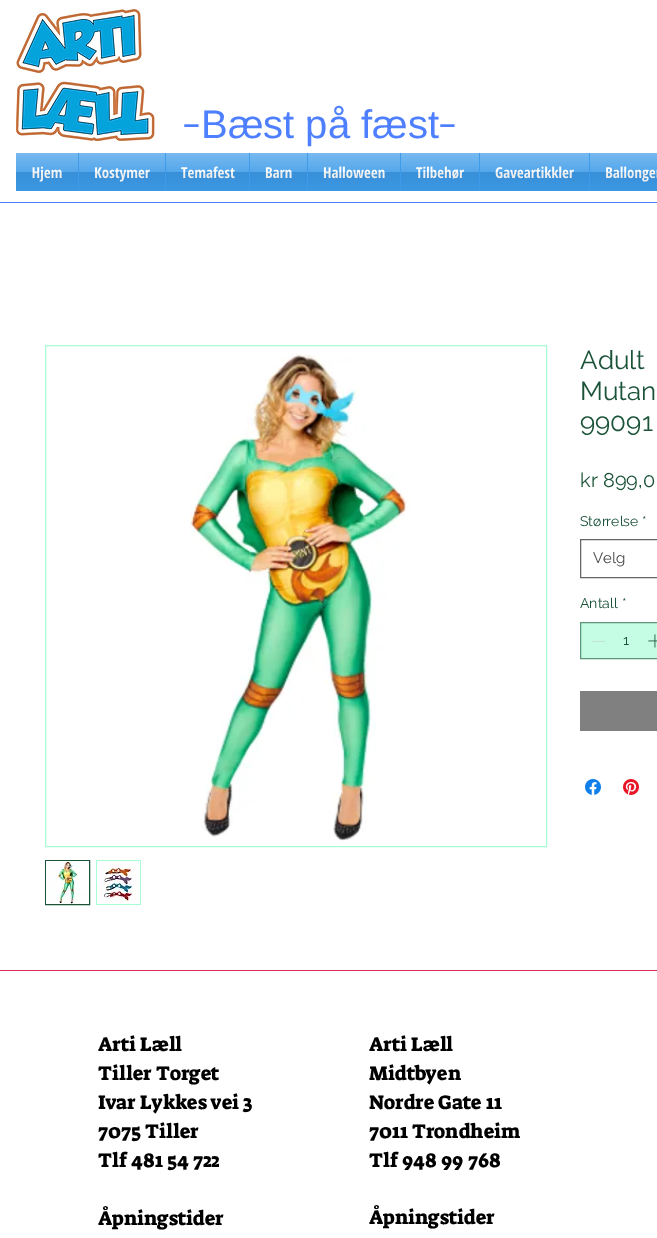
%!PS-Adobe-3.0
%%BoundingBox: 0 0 657 1238
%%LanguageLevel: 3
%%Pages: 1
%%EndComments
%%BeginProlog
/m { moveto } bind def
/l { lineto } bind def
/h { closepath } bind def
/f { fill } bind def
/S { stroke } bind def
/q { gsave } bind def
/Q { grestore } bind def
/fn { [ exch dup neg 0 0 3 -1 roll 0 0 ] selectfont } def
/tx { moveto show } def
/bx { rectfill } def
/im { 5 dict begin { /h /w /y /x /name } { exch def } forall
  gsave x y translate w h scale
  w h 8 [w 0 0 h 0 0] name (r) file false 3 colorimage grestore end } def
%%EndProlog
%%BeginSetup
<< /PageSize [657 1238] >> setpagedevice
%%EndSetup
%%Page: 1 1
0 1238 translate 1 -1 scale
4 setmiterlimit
1 setgray
0 0 657 1238 bx
(image0.raw) 16 7 139 135 im
/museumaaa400-Regular 40 fn
0.306 0.498 1 setrgbcolor
(-) 182 138 tx
/LiberationSans-Regular 40 fn
(Bæst på fæst) 201 138 tx
/museumaaa400-Regular 40 fn
(-) 438 138 tx
0.239 0.608 0.914 setrgbcolor
16 153 641 38 bx
/OpenSansCondensed-Bold 15 fn
1 setgray
(Hjem) 32 178 tx
(image1.raw) 16 153 62 38 im
(Kostymer) 94 178 tx
(image2.raw) 79 153 86 38 im
(Temafest) 181 178 tx
(image3.raw) 166 153 83 38 im
(Barn) 265 178 tx
(image4.raw) 250 153 57 38 im
(Halloween) 323 178 tx
(image5.raw) 308 153 92 38 im
(Tilbehør) 416 178 tx
(image6.raw) 401 153 78 38 im
(Gaveartikkler) 495 178 tx
(image7.raw) 480 153 109 38 im
(Ballonge) 605 178 tx
(image8.raw) 590 153 67 38 im
0.306 0.498 1 setrgbcolor
0 202 657 1 bx
0.651 0.988 0.831 setrgbcolor
45.5 345.5 501 501 rectstroke
(image9.raw) 190 354 220 487 im
0.106 0.325 0.224 setrgbcolor
45.5 860.5 44 44 rectstroke
(image10.raw) 46 861 43 43 im
0.651 0.988 0.831 setrgbcolor
96 860 45 45 bx
(image11.raw) 97 861 43 43 im
/Raleway-Regular 26 fn
0.106 0.325 0.224 setrgbcolor
(Adult) 580 369 tx
(Mutan) 580 400 tx
(99091) 580 431 tx
/Raleway-Regular 20 fn
(kr 899,0) 580 487 tx
/Raleway-Regular 14 fn
(Størrelse) 580 526 tx
(*) 642 526 tx
0.4 setgray
580.5 539.5 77 38 rectstroke
/Raleway-Regular 15 fn
0.267 setgray
(Velg) 593 563 tx
/Raleway-Regular 14 fn
0.106 0.325 0.224 setrgbcolor
(Antall) 580 608 tx
(*) 622 608 tx
0.769 0.992 0.89 setrgbcolor
580.5 622.5 m 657.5 622.5 l 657.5 658.5 l 580.5 658.5 l h q f Q
0.373 0.592 0.49 setrgbcolor
S
0.776 0.886 0.835 setrgbcolor
592 641 13 1 bx
0.106 0.325 0.224 setrgbcolor
(1) 623 645 tx
(image12.raw) 648 634 9 14 im
0.502 setgray
580 691 77 40 bx
(image13.raw) 585 779 16 16 im
(image14.raw) 623 779 16 16 im
0.878 0.184 0.345 setrgbcolor
0 970 657 1 bx
/SuezOne-Regular 20 fn
0 setgray
(Arti Læll) 98 1051 tx
(Tiller Torget) 98 1080 tx
(Ivar Lykkes vei 3) 98 1109 tx
(7075 Tiller) 98 1138 tx
(Tlf 481 54 722) 98 1167 tx
(Åpningstider) 98 1225 tx
(Arti Læll) 369 1051 tx
(Midtbyen) 369 1080 tx
(Nordre Gate 11) 369 1109 tx
(7011 Trondheim) 369 1138 tx
(Tlf 948 99 768) 369 1167 tx
(Åpningstider) 369 1224 tx
showpage
%%EOF
